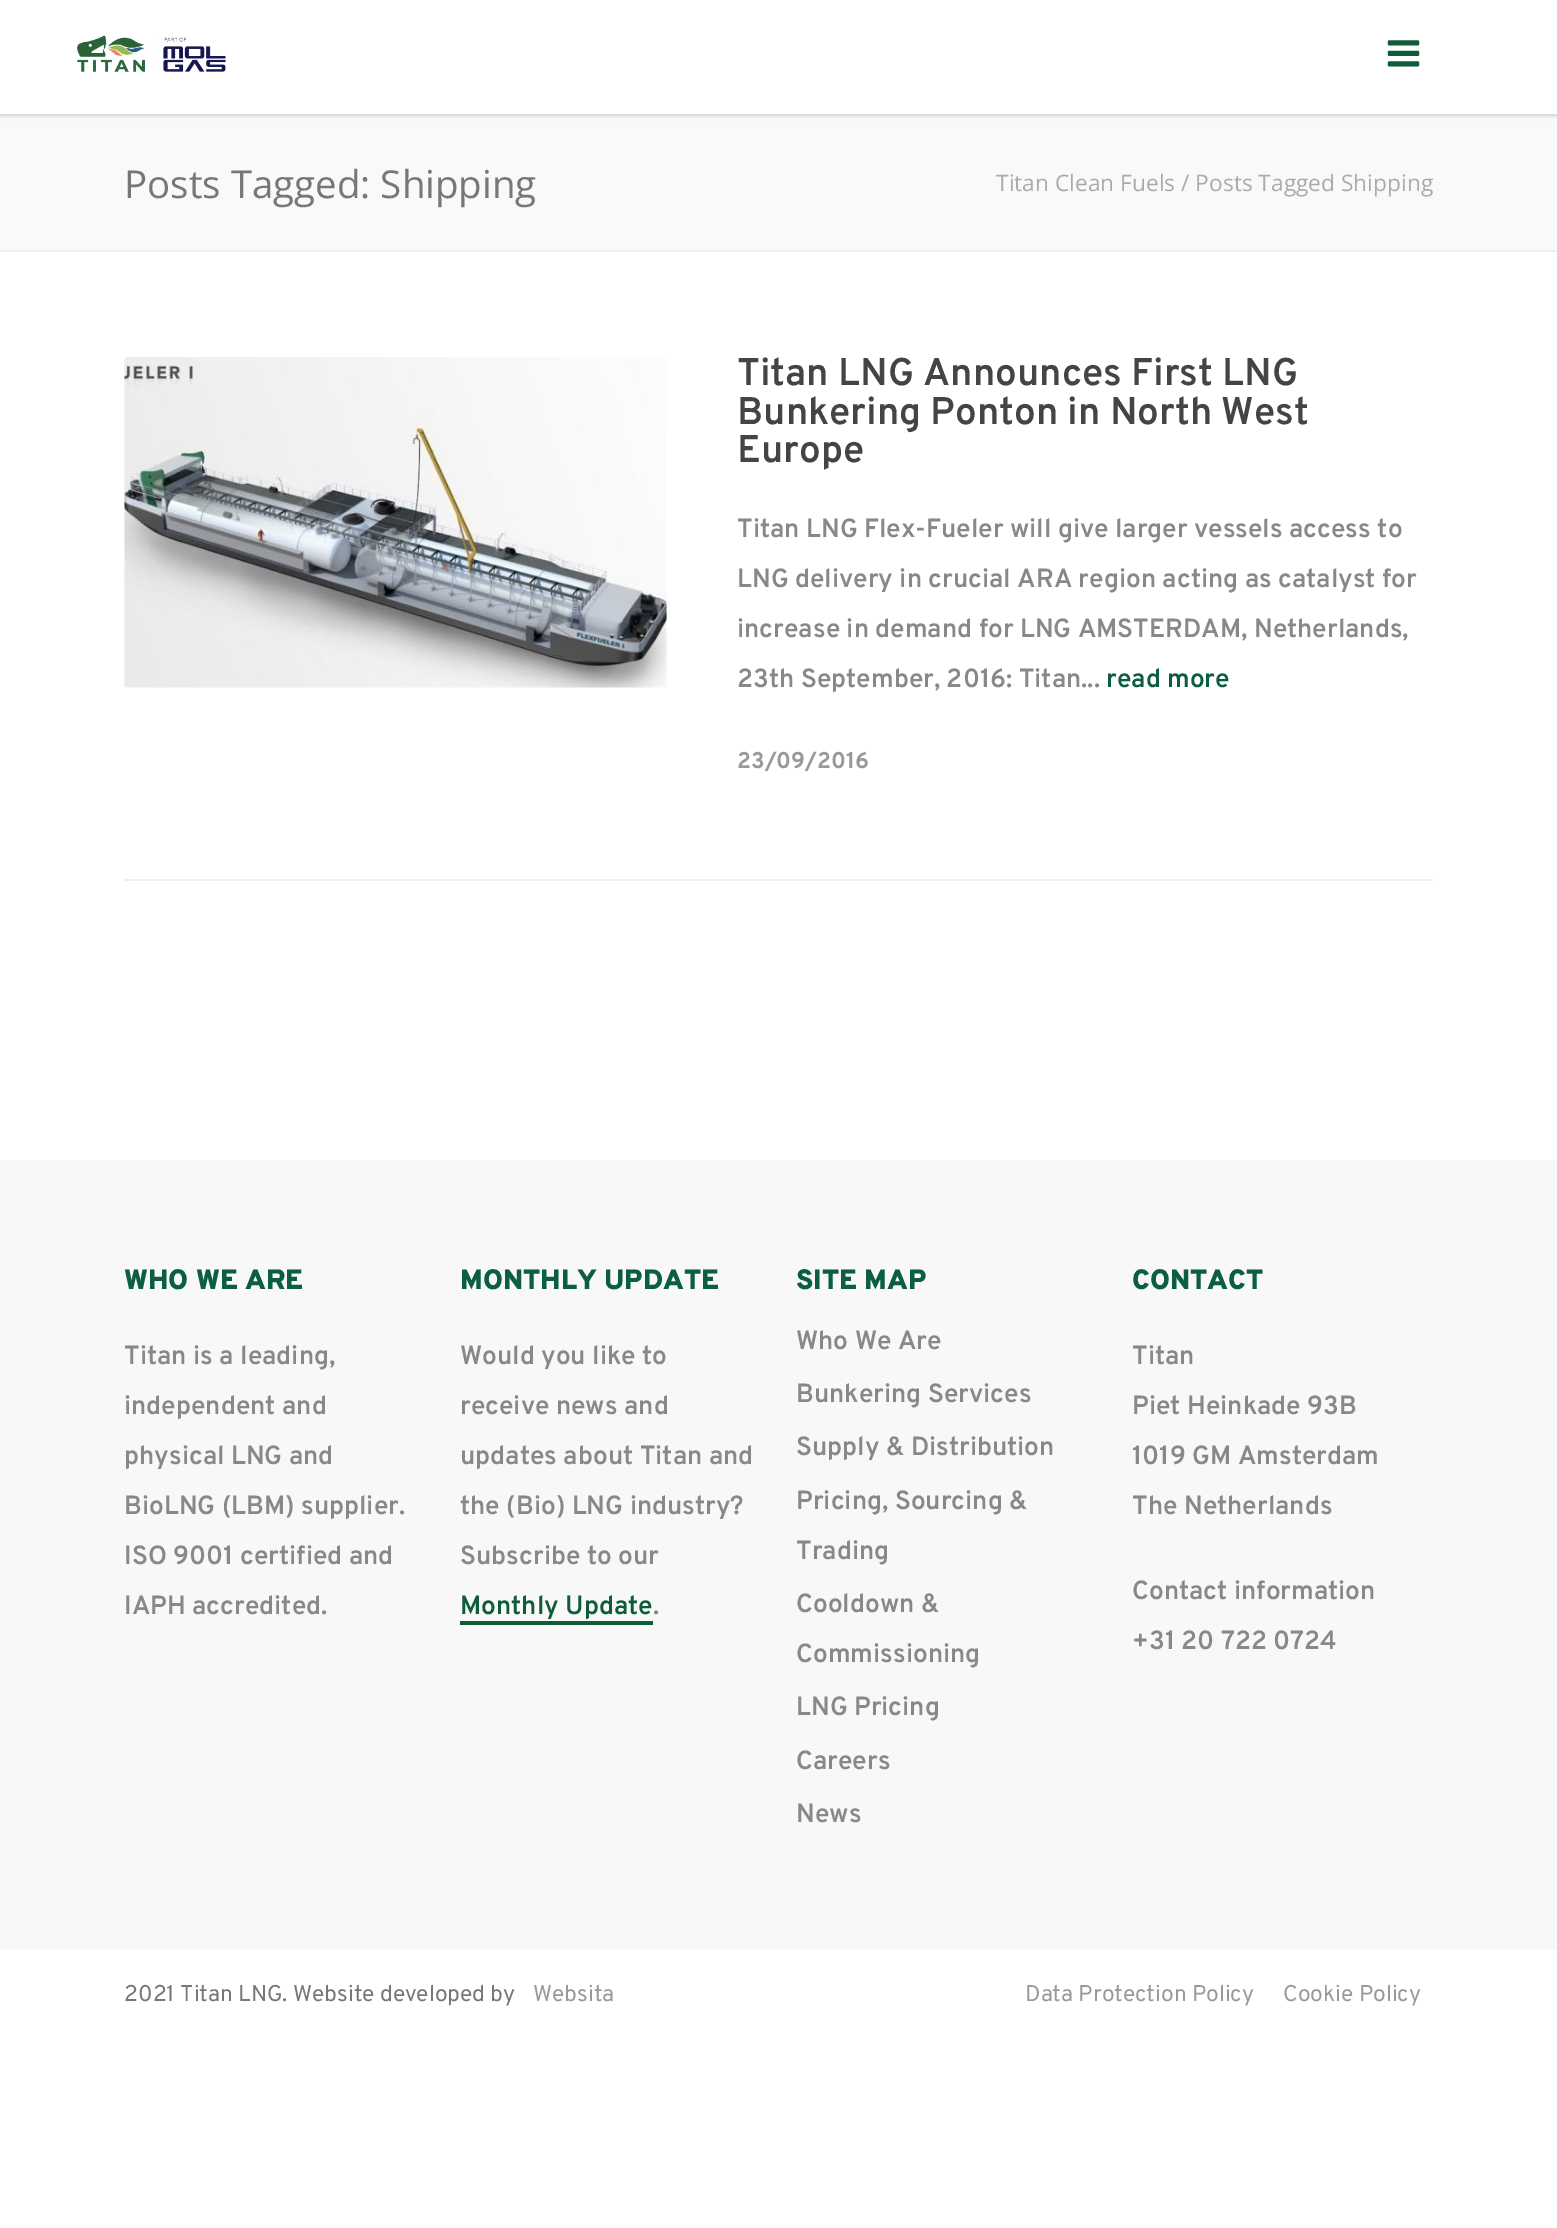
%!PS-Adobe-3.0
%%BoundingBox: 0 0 1557 2228
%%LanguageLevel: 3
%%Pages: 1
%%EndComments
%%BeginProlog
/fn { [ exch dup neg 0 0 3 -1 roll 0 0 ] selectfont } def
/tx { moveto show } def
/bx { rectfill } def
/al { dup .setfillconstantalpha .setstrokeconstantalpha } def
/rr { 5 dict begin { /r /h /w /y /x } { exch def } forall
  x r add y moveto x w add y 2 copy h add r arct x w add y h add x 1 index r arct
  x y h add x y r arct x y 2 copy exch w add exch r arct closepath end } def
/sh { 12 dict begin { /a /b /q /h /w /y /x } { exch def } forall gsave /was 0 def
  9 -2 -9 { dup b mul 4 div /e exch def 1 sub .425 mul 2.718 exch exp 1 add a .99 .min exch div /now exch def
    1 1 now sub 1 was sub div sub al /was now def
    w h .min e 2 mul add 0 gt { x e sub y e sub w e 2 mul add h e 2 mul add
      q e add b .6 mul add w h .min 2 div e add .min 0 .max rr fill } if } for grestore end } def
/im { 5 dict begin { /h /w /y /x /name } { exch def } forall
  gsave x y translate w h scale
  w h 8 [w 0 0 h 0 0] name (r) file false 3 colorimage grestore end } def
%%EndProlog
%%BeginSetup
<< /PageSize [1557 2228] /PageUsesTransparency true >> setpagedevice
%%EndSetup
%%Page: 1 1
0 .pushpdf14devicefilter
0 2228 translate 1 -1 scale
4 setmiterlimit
1 setgray
0 0 1557 2228 bx
0.976 setgray
0 114 1557 136 bx
0 setgray
-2 -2 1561 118 0 2 0.16 sh
1 setgray
0 0 1557 114 bx
(image0.raw) 77 35 149 37 im
(image1.raw) 1387 40 33 27 im
0.937 setgray
0 250 1557 2 bx
/OpenSans-Regular 38.5 fn
0.467 setgray
(Posts Tagged: Shipping) 124 198 tx
/OpenSans-Regular 22.75 fn
0.667 setgray
(Titan Clean Fuels / Posts Tagged Shipping) 996 191 tx
0.937 setgray
124 879 1309 2 bx
(image2.raw) 124 357 543 331 im
/Overpass-SemiBold 38.5 fn
0.267 setgray
(Titan LNG Announces First LNG) 737 385 tx
(Bunkering Ponton in North West) 737 424 tx
(Europe) 737 462 tx
/Overpass-SemiBold 26.25 fn
0.533 setgray
(Titan LNG Flex-Fueler will give larger vessels access to) 737 537 tx
(LNG delivery in crucial ARA region acting as catalyst for) 737 587 tx
(increase in demand for LNG AMSTERDAM, Netherlands,) 737 637 tx
(23th September, 2016: Titan...) 737 687 tx
0.043 0.369 0.267 setrgbcolor
(read more) 1106 687 tx
/Overpass-Bold 22.75 fn
0.6 setgray
(23/09/2016) 737 768 tx
0.973 setgray
0 1160 1557 790 bx
/Overpass-Black 28 fn
0.043 0.369 0.267 setrgbcolor
(WHO WE ARE) 124 1289 tx
/Overpass-SemiBold 26.25 fn
0.533 setgray
(Titan is a leading,) 124 1364 tx
(independent and) 124 1414 tx
(physical LNG and) 124 1464 tx
(BioLNG \(LBM\) supplier.) 124 1514 tx
(ISO 9001 certified and) 124 1564 tx
(IAPH accredited.) 124 1614 tx
/Overpass-Black 28 fn
0.043 0.369 0.267 setrgbcolor
(MONTHLY UPDATE) 460 1289 tx
/Overpass-SemiBold 26.25 fn
0.533 setgray
(Would you like to) 460 1364 tx
(receive news and) 460 1414 tx
(updates about Titan and) 460 1464 tx
(the \(Bio\) LNG industry?) 460 1514 tx
(Subscribe to our) 460 1564 tx
0.047 0.365 0.22 setrgbcolor
460 1621 193 4 bx
(Monthly Update) 460 1614 tx
0.533 setgray
(.) 653 1614 tx
/Overpass-Black 28 fn
0.043 0.369 0.267 setrgbcolor
(SITE MAP) 796 1289 tx
/Overpass-SemiBold 26.25 fn
0.533 setgray
(Who We Are) 796 1349 tx
(Bunkering Services) 796 1402 tx
(Supply & Distribution) 796 1455 tx
(Pricing, Sourcing &) 796 1509 tx
(Trading) 796 1559 tx
(Cooldown &) 796 1612 tx
(Commissioning) 796 1662 tx
(LNG Pricing) 796 1715 tx
(Careers) 796 1769 tx
(News) 796 1822 tx
/Overpass-Black 28 fn
0.043 0.369 0.267 setrgbcolor
(CONTACT) 1132 1289 tx
/Overpass-SemiBold 26.25 fn
0.533 setgray
(Titan) 1132 1364 tx
(Piet Heinkade 93B) 1132 1414 tx
(1019 GM Amsterdam) 1132 1464 tx
(The Netherlands) 1132 1514 tx
(Contact information) 1132 1599 tx
(+31 20 722 0724) 1132 1649 tx
/Overpass-Regular 22.75 fn
0.467 setgray
(2021 Titan LNG. Website developed by) 124 2001 tx
0.6 setgray
(Websita) 533 2001 tx
(Data Protection Policy) 1025 2001 tx
(Cookie Policy) 1283 2001 tx
.poppdf14devicefilter showpage
%%EOF
